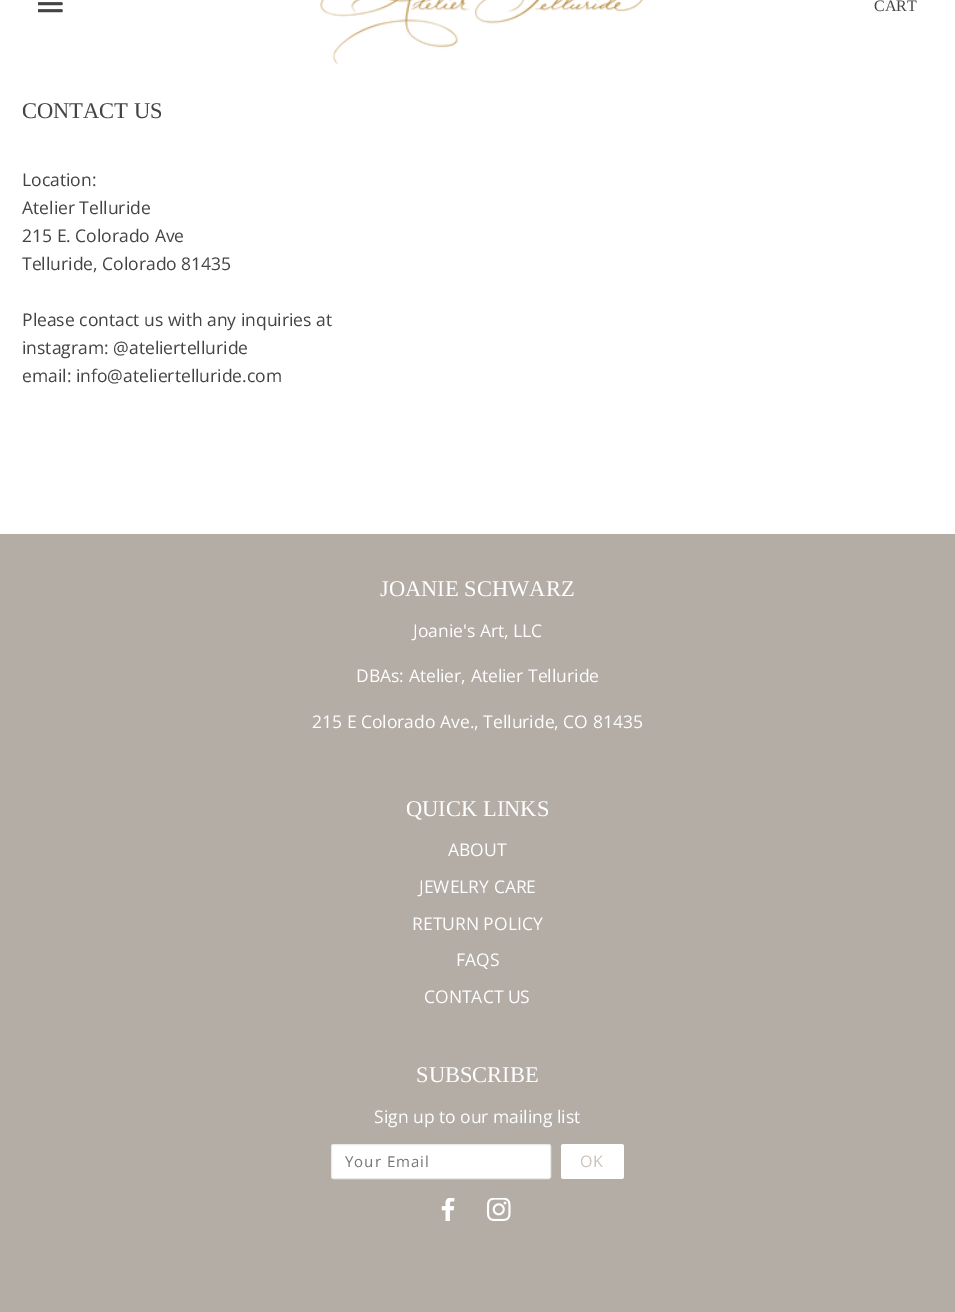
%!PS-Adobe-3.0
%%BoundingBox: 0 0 955 1312
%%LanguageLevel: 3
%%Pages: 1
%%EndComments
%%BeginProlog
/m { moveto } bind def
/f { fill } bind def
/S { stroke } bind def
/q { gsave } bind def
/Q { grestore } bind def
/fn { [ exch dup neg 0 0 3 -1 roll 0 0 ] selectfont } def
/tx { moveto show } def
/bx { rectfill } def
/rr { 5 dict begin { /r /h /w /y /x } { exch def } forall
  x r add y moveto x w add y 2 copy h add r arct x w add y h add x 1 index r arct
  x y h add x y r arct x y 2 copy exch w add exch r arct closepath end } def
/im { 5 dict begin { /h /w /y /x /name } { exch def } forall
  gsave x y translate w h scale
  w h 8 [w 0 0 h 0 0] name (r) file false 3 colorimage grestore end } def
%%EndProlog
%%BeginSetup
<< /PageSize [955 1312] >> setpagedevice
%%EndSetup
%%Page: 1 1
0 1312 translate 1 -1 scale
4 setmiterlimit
1 setgray
0 0 955 1312 bx
(image0.raw) 38 2 25 11 im
(image1.raw) 320 0 323 65 im
/LiberationSerif-Regular 16 fn
0.267 setgray
(CART) 874 11 tx
/LiberationSerif-Regular 22.5 fn
(CONTACT US) 22 118 tx
/OpenSans-Regular 17.5 fn
(Location:) 22 186 tx
(Atelier Telluride) 22 214 tx
(215 E. Colorado Ave) 22 242 tx
(Telluride, Colorado 81435) 22 270 tx
(Please contact us with any inquiries at) 22 326 tx
(instagram: @ateliertelluride) 22 354 tx
(email: info@ateliertelluride.com) 22 382 tx
0.702 0.678 0.651 setrgbcolor
0 534 955 778 bx
/LiberationSerif-Regular 22.5 fn
1 setgray
(JOANIE SCHWARZ) 380 596 tx
/OpenSans-Regular 17.5 fn
(Joanie's Art, LLC) 413 637 tx
(DBAs: Atelier, Atelier Telluride) 356 682 tx
(215 E Colorado Ave., Telluride, CO 81435) 312 728 tx
/LiberationSerif-Regular 22.5 fn
(QUICK LINKS) 406 816 tx
/OpenSans-Regular 17.5 fn
(ABOUT) 448 856 tx
(JEWELRY CARE) 419 893 tx
(RETURN POLICY) 412 930 tx
(FAQS) 456 966 tx
(CONTACT US) 424 1003 tx
/LiberationSerif-Regular 22.5 fn
(SUBSCRIBE) 416 1082 tx
/OpenSans-Regular 17.5 fn
(Sign up to our mailing list) 374 1123 tx
331.5 1144.5 219 34 2 rr q f Q
0.922 setgray
S
/OpenSans-Regular 15 fn
0.459 setgray
345 1167 m 1 0 (Your Email) ashow
1 setgray
561 1144 63 35 2.5 rr f
/OpenSans-Regular 16 fn
0.796 0.769 0.737 setrgbcolor
580 1167 m 1 0 (OK) ashow
(image2.raw) 441 1198 14 23 im
(image3.raw) 486 1198 25 23 im
showpage
%%EOF
